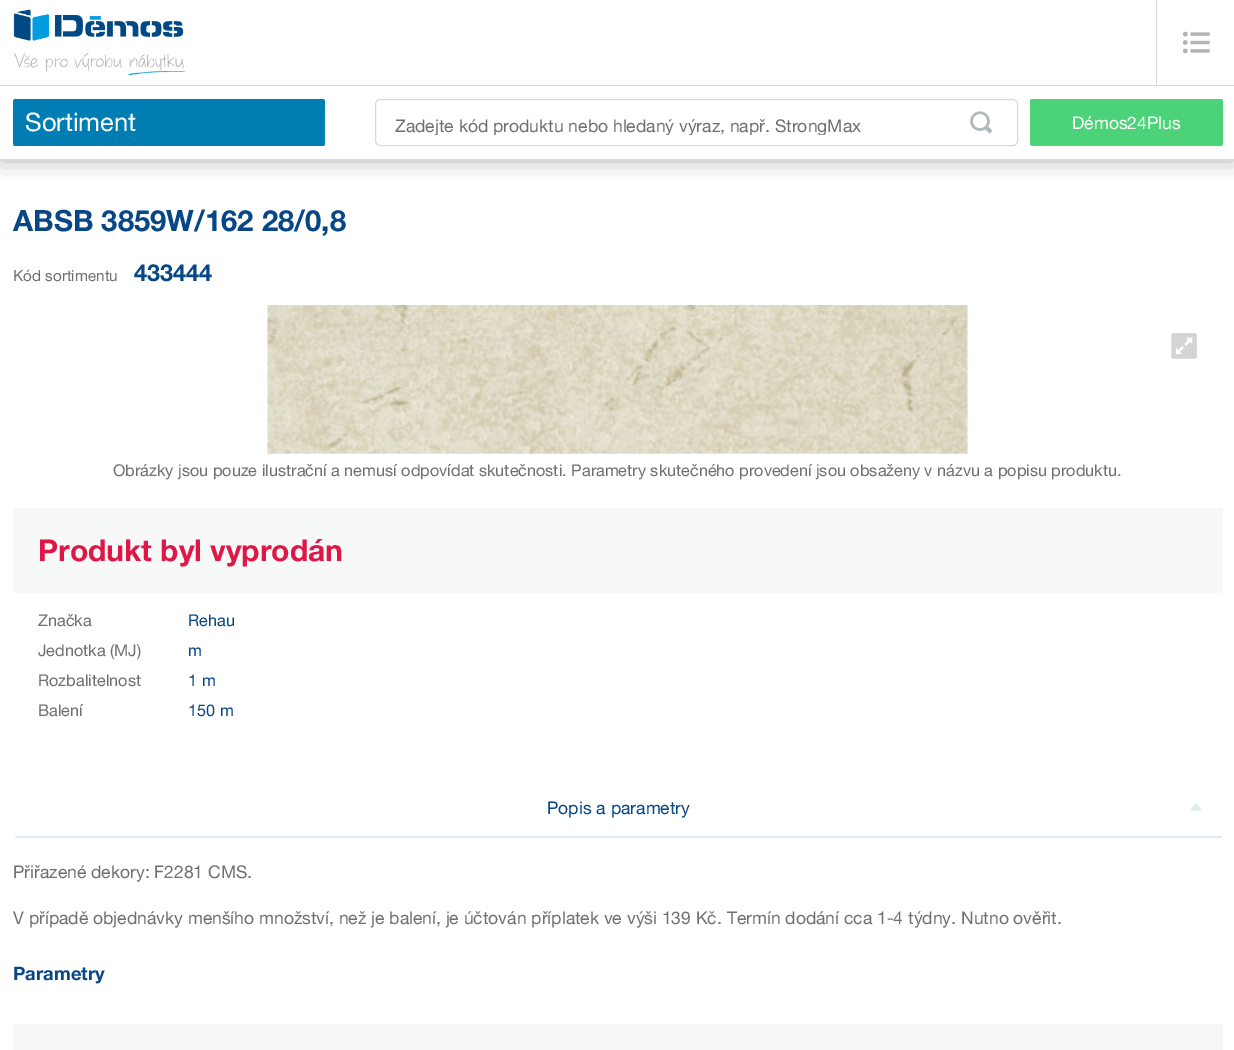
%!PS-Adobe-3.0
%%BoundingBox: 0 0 1234 1050
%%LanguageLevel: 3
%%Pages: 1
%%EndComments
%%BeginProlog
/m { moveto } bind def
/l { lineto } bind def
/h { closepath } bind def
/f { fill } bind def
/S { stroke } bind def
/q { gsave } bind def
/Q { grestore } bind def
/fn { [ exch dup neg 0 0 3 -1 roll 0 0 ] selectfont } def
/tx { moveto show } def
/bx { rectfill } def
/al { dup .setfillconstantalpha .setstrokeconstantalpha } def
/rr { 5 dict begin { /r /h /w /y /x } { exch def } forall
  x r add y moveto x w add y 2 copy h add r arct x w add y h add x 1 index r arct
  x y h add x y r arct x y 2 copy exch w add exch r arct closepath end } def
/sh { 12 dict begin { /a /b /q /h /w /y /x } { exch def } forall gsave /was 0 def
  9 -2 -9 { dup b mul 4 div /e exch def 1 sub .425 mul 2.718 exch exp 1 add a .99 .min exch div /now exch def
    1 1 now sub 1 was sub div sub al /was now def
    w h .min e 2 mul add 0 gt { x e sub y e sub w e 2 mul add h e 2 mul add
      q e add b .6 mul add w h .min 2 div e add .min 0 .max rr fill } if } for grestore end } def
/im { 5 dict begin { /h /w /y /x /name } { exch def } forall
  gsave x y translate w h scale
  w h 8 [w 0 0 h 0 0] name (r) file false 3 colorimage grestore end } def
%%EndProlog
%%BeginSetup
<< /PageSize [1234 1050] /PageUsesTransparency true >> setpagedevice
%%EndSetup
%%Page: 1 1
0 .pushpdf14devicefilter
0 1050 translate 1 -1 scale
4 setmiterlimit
1 setgray
0 0 1234 1050 bx
q
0 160 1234 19 rectclip
0 setgray
0 0 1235 160 0 12.5 0.3 sh
Q
0.851 setgray
0 159 1234 1 bx
0 85 1234 1 bx
0 0.49 0.702 setrgbcolor
13 99 312 47 2.5 rr f
/HelveticaNeue-Regular 25.5 fn
1 setgray
(Sortiment) 25 131 tx
(image0.raw) 13 9 172 67 im
0.851 setgray
1156 0 1 85 bx
(image1.raw) 1182 31 28 23 im
375.5 99.5 642 46 4.5 rr S
q
395 114 541 21 rectclip
/HelveticaNeue-Regular 17.5 fn
0.439 setgray
(Zadejte kód produktu nebo hledaný výraz, např. StrongMax) 395 132 tx
Q
(image2.raw) 970 111 23 23 im
0.298 0.824 0.471 setrgbcolor
1030 99 193 47 2.5 rr f
/HelveticaNeue-Regular 17.5 fn
1 setgray
(Démos24Plus) 1072 129 tx
/HelveticaNeue-Bold 29.25 fn
0.027 0.278 0.525 setrgbcolor
(ABSB 3859W/162 28/0,8) 13 231 tx
/HelveticaNeue-Regular 15.25 fn
0.439 setgray
(Kód sortimentu) 13 281 tx
/HelveticaNeue-Bold 23.5 fn
0.027 0.278 0.525 setrgbcolor
(433444) 134 281 tx
(image3.raw) 267 305 701 149 im
(image4.raw) 1171 333 26 26 im
/HelveticaNeue-Regular 16.25 fn
0.439 setgray
(Obrázky jsou pouze ilustrační a nemusí odpovídat skutečnosti. Parametry skutečného provedení jsou obsaženy v názvu a popisu produktu.) 113 476 tx
0.969 0.973 0.973 setrgbcolor
13 508 1210 85 bx
/HelveticaNeue-Bold 30 fn
0.871 0.09 0.275 setrgbcolor
(Produkt byl vyprodán) 38 561 tx
/HelveticaNeue-Regular 16.25 fn
0.439 setgray
(Značka) 38 626 tx
0.027 0.278 0.525 setrgbcolor
(Rehau) 188 626 tx
0.439 setgray
(Jednotka \(MJ\)) 38 656 tx
0.027 0.278 0.525 setrgbcolor
(m) 188 656 tx
0.439 setgray
(Rozbalitelnost) 38 686 tx
0.027 0.278 0.525 setrgbcolor
(1 m) 188 686 tx
0.439 setgray
(Balení) 38 716 tx
0.027 0.278 0.525 setrgbcolor
(150 m) 188 716 tx
0.867 0.918 0.949 setrgbcolor
1222 838 m 15 838 l 16 836 l 1221 836 l h f
/HelveticaNeue-Regular 17.5 fn
0.027 0.278 0.525 setrgbcolor
(Popis a parametry) 547 814 tx
0.867 0.918 0.949 setrgbcolor
1202.5 810.5 m 1196 803.5 l 1190 810.5 l h f
0.439 setgray
(Přiřazené dekory: F2281 CMS.) 13 878 tx
(V případě objednávky menšího množství, než je balení, je účtován příplatek ve výši 139 Kč. Termín dodání cca 1-4 týdny. Nutno ověřit.) 13 924 tx
/HelveticaNeue-Bold 18.5 fn
0.027 0.278 0.525 setrgbcolor
(Parametry) 13 980 tx
0.961 0.969 0.973 setrgbcolor
13 1024 1210 26 bx
.poppdf14devicefilter showpage
%%EOF
